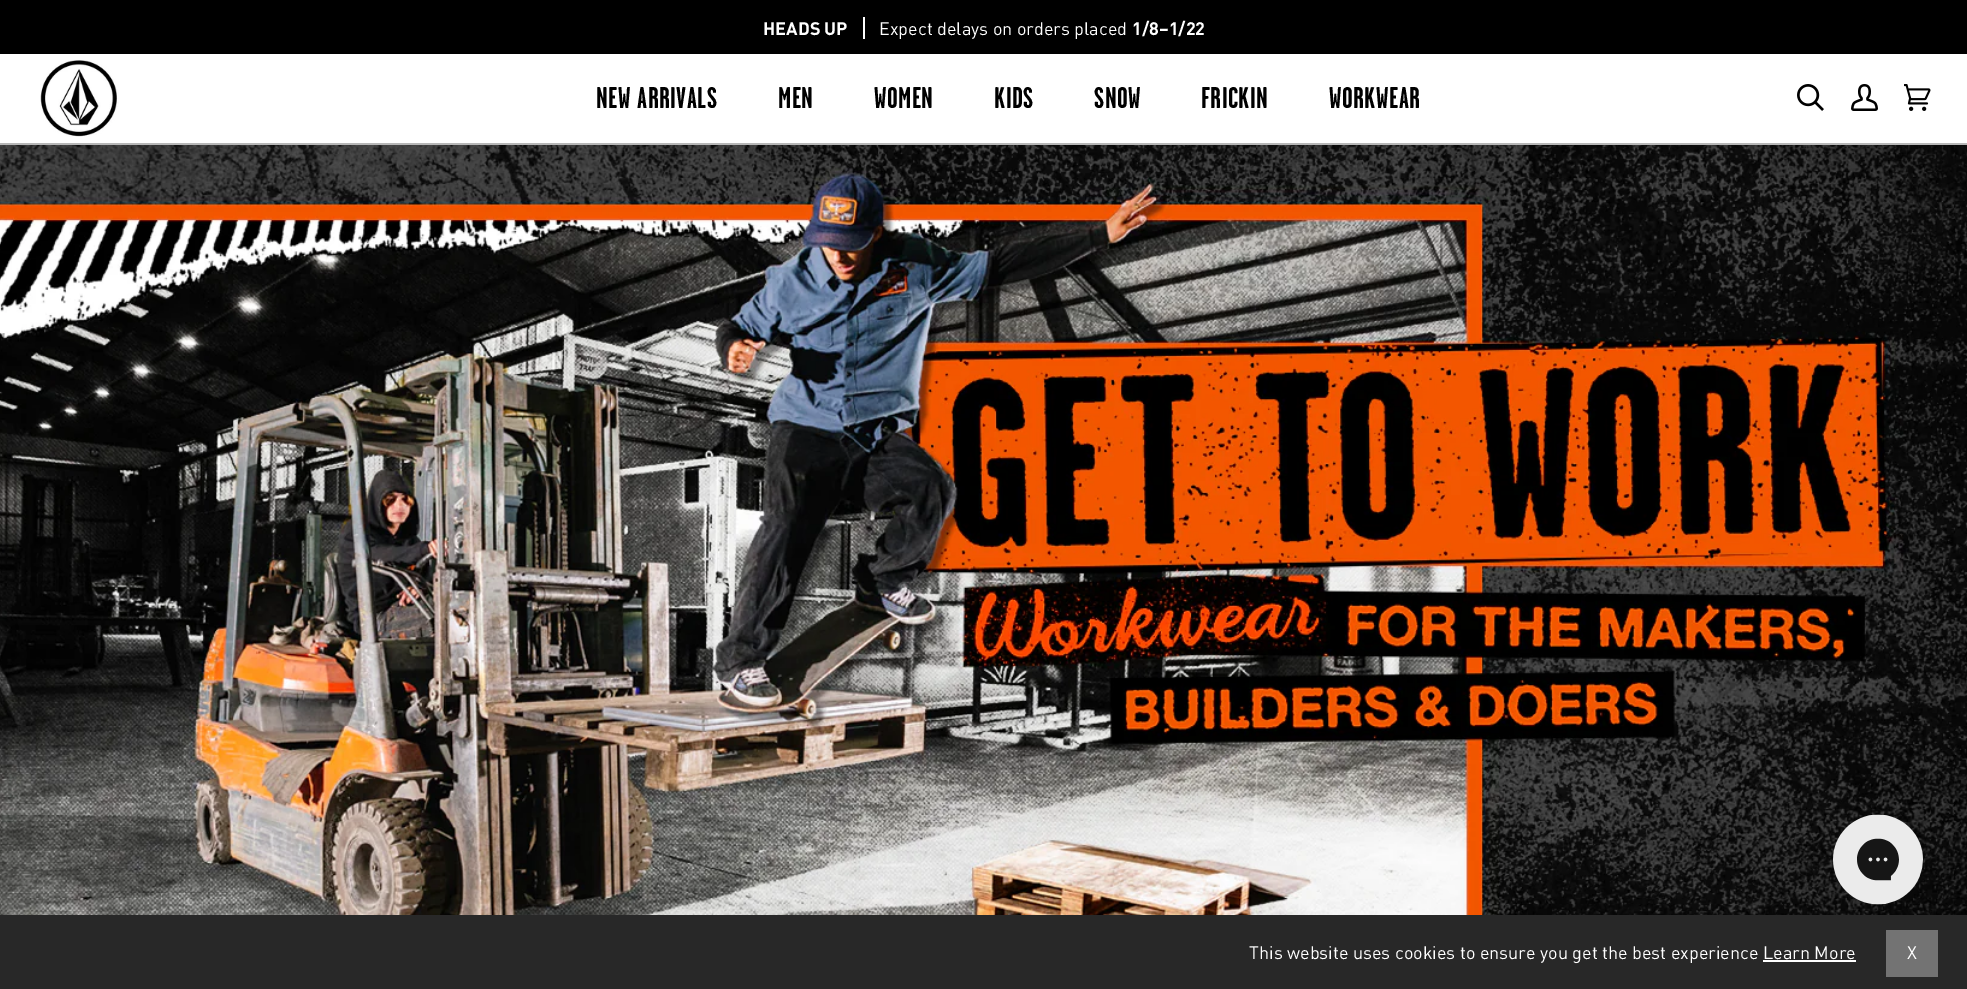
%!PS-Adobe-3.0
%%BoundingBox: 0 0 1967 989
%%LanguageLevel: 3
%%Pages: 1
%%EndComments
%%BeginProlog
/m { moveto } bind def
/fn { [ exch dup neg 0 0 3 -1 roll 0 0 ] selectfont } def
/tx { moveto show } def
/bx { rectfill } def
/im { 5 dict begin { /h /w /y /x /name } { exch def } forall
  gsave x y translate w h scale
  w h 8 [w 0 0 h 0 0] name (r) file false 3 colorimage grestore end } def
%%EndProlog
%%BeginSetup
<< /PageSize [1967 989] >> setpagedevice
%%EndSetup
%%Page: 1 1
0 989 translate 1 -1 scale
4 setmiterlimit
1 setgray
0 0 1967 989 bx
0 setgray
0 0 1967 54 bx
/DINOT-Bold 18 fn
1 setgray
(HEADS UP) 763 35 tx
863 17 2 22 bx
/DINOT-Regular 18 fn
(Expect delays on orders placed) 879 35 tx
/DINOT-Bold 18 fn
(1/8–1/22) 1132 35 tx
0.718 setgray
0 143 1967 2 bx
(image0.raw) 40 60 79 77 im
/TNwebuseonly-Bold 30 fn
0 setgray
596 108 m 0.5 0 (NEW ARRIVALS) ashow
778 108 m 0.5 0 (MEN) ashow
874 108 m 0.5 0 (WOMEN) ashow
994 108 m 0.5 0 (KIDS) ashow
1094 108 m 0.5 0 (SNOW) ashow
1201 108 m 0.5 0 (FRICKIN) ashow
1329 108 m 0.5 0 (WORKWEAR) ashow
(image1.raw) 1797 84 27 27 im
(image2.raw) 1851 84 27 27 im
(image3.raw) 1904 84 27 27 im
(image4.raw) 0 145 1967 770 im
(image5.raw) 1833 814 90 91 im
0.157 setgray
0 915 1967 74 bx
/DINOT-Regular 18 fn
1 setgray
(This website uses cookies to ensure you get the best experience Learn More) 1249 959 tx
1763 960 93 2 bx
0.451 setgray
1886 930 52 47 bx
1 setgray
(X) 1907 959 tx
showpage
%%EOF
